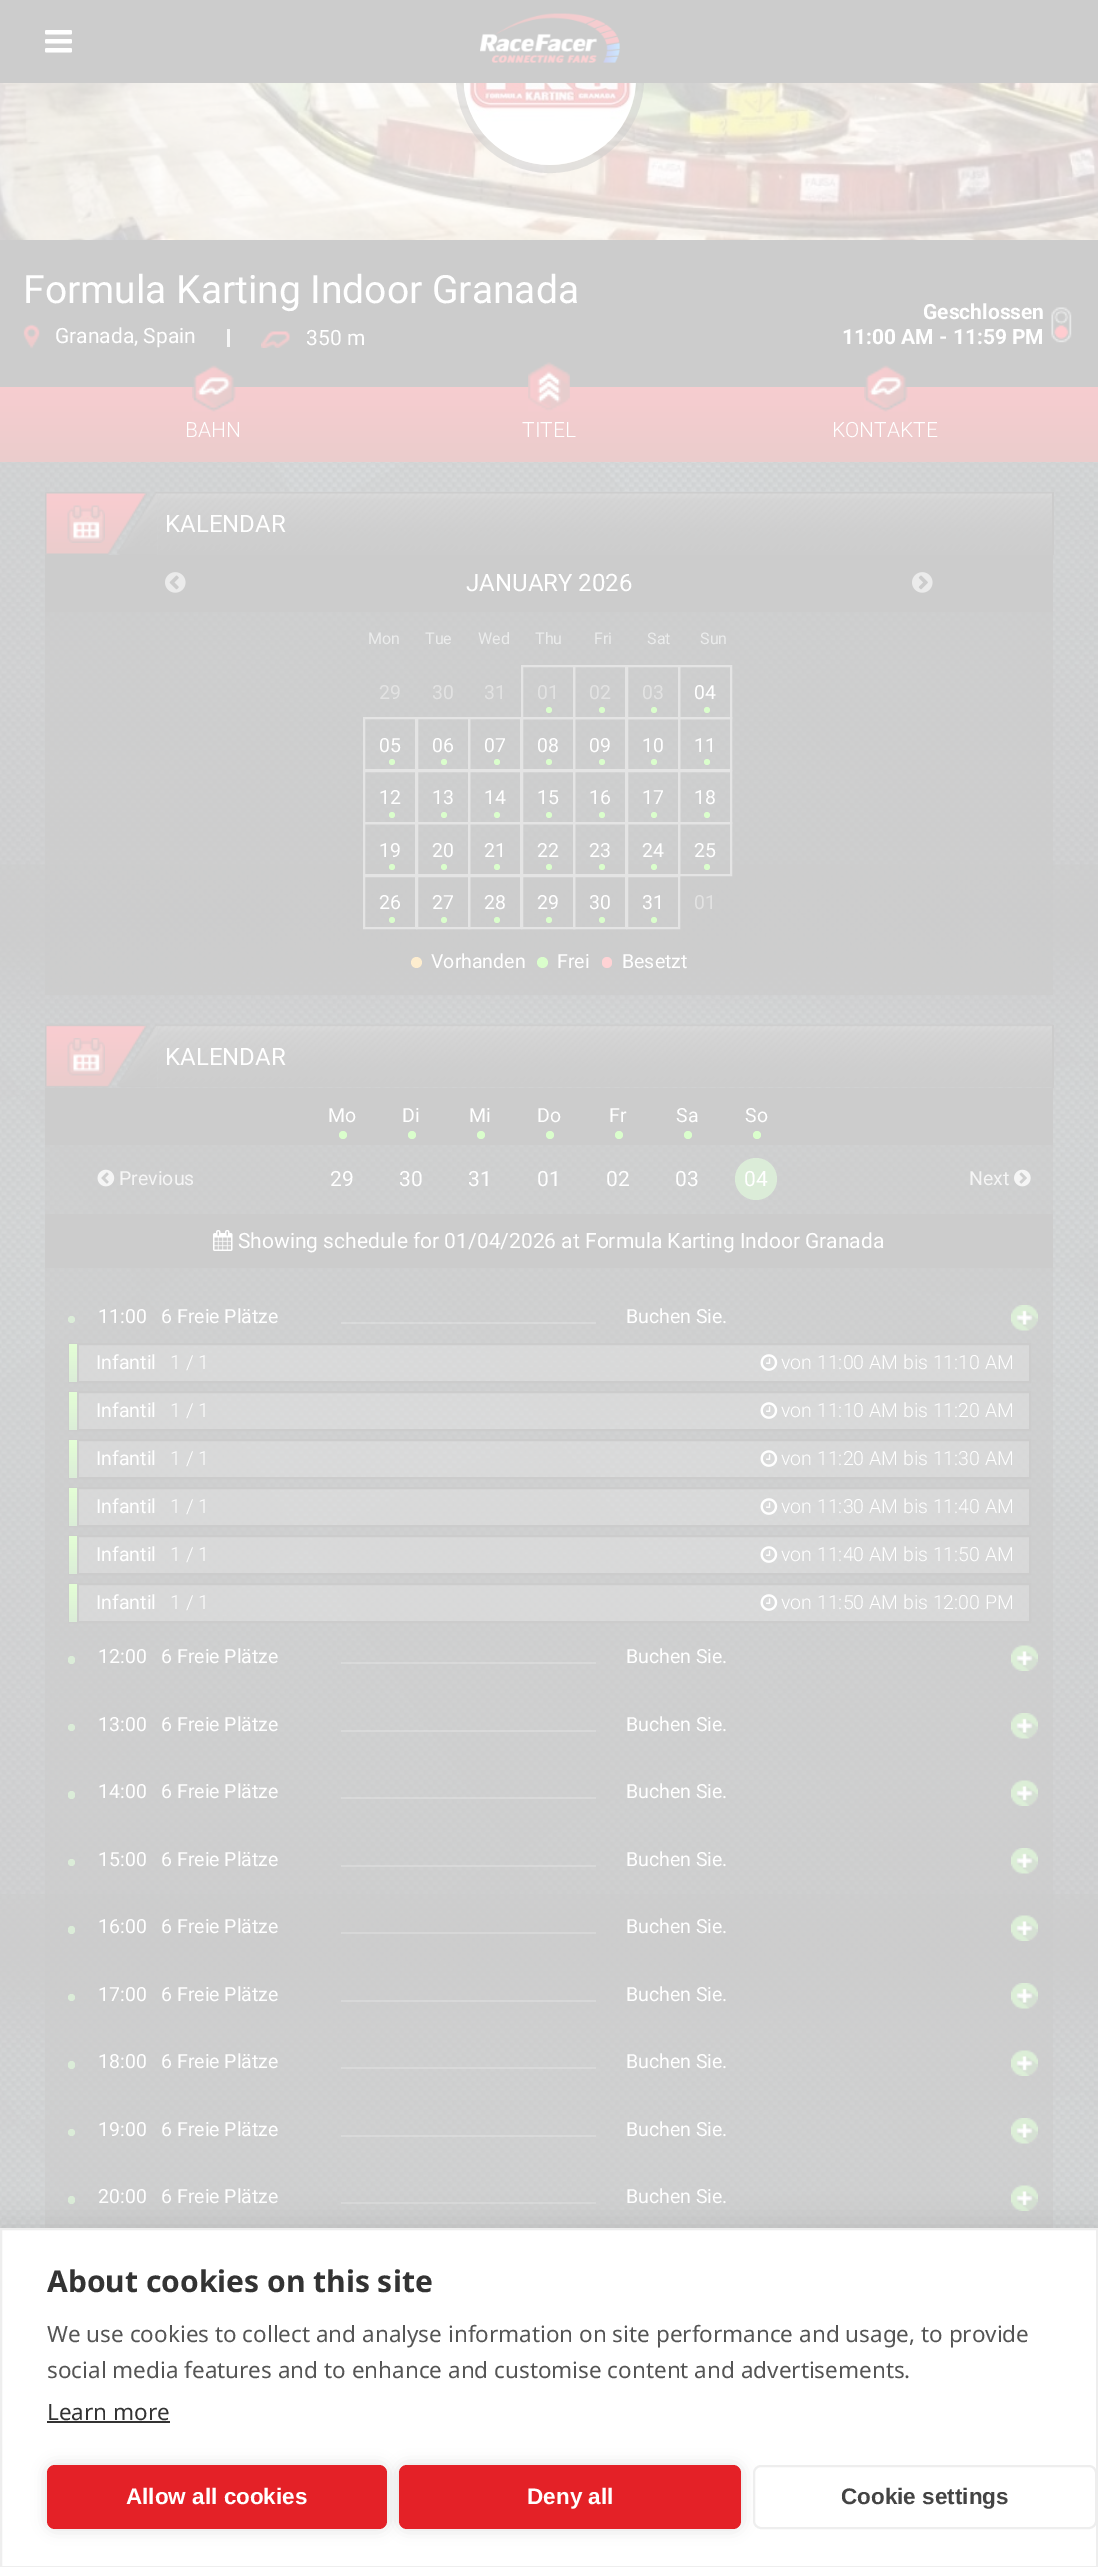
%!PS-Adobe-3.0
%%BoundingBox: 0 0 1098 2567
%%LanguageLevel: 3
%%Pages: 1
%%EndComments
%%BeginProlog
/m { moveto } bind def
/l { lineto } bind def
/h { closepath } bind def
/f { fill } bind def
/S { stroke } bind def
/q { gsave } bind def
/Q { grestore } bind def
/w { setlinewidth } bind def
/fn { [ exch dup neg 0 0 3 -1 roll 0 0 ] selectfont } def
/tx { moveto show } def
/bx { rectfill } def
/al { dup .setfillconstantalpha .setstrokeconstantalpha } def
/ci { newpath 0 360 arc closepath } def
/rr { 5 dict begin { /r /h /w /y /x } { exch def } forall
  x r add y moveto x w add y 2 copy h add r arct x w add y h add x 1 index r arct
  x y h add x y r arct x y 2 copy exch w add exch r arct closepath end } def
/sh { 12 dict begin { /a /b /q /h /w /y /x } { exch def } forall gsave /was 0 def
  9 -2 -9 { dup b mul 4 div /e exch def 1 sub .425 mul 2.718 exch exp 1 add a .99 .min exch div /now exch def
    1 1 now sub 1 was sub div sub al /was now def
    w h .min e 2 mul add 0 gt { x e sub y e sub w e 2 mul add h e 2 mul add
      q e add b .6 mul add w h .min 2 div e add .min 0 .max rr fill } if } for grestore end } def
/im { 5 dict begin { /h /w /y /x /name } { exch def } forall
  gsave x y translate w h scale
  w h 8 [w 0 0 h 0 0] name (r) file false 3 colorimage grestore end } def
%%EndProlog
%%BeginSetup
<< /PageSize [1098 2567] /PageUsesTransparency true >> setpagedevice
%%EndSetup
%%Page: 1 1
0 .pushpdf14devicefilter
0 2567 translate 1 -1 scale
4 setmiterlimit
1 setgray
0 0 1098 2567 bx
(image3.raw) 0 83 1098 157 im
0.5 al
0.8 setgray
8 w
550 79 90 ci S
1 al
0 0 1098 83 bx
(image0.raw) 45 30 27 23 im
(image1.raw) 480 13 140 50 im
(image2.raw) 0 462 1098 1766 im
(image4.raw) 463 83 173 82 im
0 240 1098 147 bx
/Roboto-Regular 39 fn
1 setgray
(Formula Karting Indoor Granada) 23 303 tx
(image5.raw) 23 324 17 25 im
/Roboto-Regular 21 fn
(Granada, Spain) 55 343 tx
0.965 setgray
227 329 3 18 bx
(image6.raw) 261 331 29 17 im
1 setgray
(350 m) 306 345 tx
/Roboto-Bold 21 fn
(Geschlossen) 923 319 tx
(11:00 AM - 11:59 PM) 842 344 tx
(image7.raw) 1051 307 21 36 im
q 0 387 m 1098 387 l 1098 462 l 0 462 l h clip newpath
<< /ShadingType 2 /ColorSpace /DeviceRGB /Coords [549 387 549 462] /Extend [true true] /Function << /FunctionType 2 /Domain [0 1] /C0 [0.969 0.8 0.816] /C1 [0.922 0.8 0.8] /N 1 >> >> shfill Q
(image8.raw) 192 365 44 47 im
/Roboto-Light 21 fn
(BAHN) 185 437 tx
(image9.raw) 528 362 42 50 im
(TITEL) 522 437 tx
(image8.raw) 864 365 44 47 im
(KONTAKTE) 832 437 tx
(image10.raw) 45 492 102 63 im
(image11.raw) 67 505 38 38 im
(image12.raw) 157 492 895 63 im
0.8 setgray
1052 492 2 63 bx
(image13.raw) 117 492 41 63 im
/Roboto-Regular 24 fn
1 setgray
(KALENDAR) 165 532 tx
0.8 setgray
45 555 1008 57 bx
(image14.raw) 165 572 21 21 im
1 setgray
(JANUARY 2026) 466 591 tx
(image15.raw) 912 572 21 21 im
0.7 al
0.8 setgray
45 612 1008 383 bx
/Roboto-Regular 16 fn
1 al
0.922 0.925 0.925 setrgbcolor
(Mon) 368 644 tx
(Tue) 425 644 tx
(Wed) 478 644 tx
(Thu) 535 644 tx
(Fri) 594 644 tx
(Sat) 647 644 tx
(Sun) 700 644 tx
/Roboto-Regular 19.5 fn
0.886 setgray
(29) 379 699 tx
(30) 432 699 tx
(31) 484 699 tx
0.894 setgray
2 w
522 666 52 52 rectstroke
0.886 setgray
(01) 537 699 tx
0.855 0.996 0.8 setrgbcolor
549 710 3 ci f
0.894 setgray
574 666 52 52 rectstroke
0.886 setgray
(02) 589 699 tx
0.855 0.996 0.8 setrgbcolor
602 710 3 ci f
0.894 setgray
627 666 52 52 rectstroke
0.886 setgray
(03) 642 699 tx
0.855 0.996 0.8 setrgbcolor
654 710 3 ci f
0.894 setgray
679 666 52 52 rectstroke
1 setgray
(04) 694 699 tx
0.855 0.996 0.8 setrgbcolor
707 710 3 ci f
0.894 setgray
364 718 52 52 rectstroke
1 setgray
(05) 379 752 tx
0.855 0.996 0.8 setrgbcolor
392 762 3 ci f
0.894 setgray
417 718 52 52 rectstroke
1 setgray
(06) 432 752 tx
0.855 0.996 0.8 setrgbcolor
444 762 3 ci f
0.894 setgray
469 718 52 52 rectstroke
1 setgray
(07) 484 752 tx
0.855 0.996 0.8 setrgbcolor
497 762 3 ci f
0.894 setgray
522 718 52 52 rectstroke
1 setgray
(08) 537 752 tx
0.855 0.996 0.8 setrgbcolor
549 762 3 ci f
0.894 setgray
574 718 52 52 rectstroke
1 setgray
(09) 589 752 tx
0.855 0.996 0.8 setrgbcolor
602 762 3 ci f
0.894 setgray
627 718 52 52 rectstroke
1 setgray
(10) 642 752 tx
0.855 0.996 0.8 setrgbcolor
654 762 3 ci f
0.894 setgray
679 718 52 52 rectstroke
1 setgray
(11) 694 752 tx
0.855 0.996 0.8 setrgbcolor
707 762 3 ci f
0.894 setgray
364 771 52 52 rectstroke
1 setgray
(12) 379 804 tx
0.855 0.996 0.8 setrgbcolor
392 815 3 ci f
0.894 setgray
417 771 52 52 rectstroke
1 setgray
(13) 432 804 tx
0.855 0.996 0.8 setrgbcolor
444 815 3 ci f
0.894 setgray
469 771 52 52 rectstroke
1 setgray
(14) 484 804 tx
0.855 0.996 0.8 setrgbcolor
497 815 3 ci f
0.894 setgray
522 771 52 52 rectstroke
1 setgray
(15) 537 804 tx
0.855 0.996 0.8 setrgbcolor
549 815 3 ci f
0.894 setgray
574 771 52 52 rectstroke
1 setgray
(16) 589 804 tx
0.855 0.996 0.8 setrgbcolor
602 815 3 ci f
0.894 setgray
627 771 52 52 rectstroke
1 setgray
(17) 642 804 tx
0.855 0.996 0.8 setrgbcolor
654 815 3 ci f
0.894 setgray
679 771 52 52 rectstroke
1 setgray
(18) 694 804 tx
0.855 0.996 0.8 setrgbcolor
707 815 3 ci f
0.894 setgray
364 823 52 52 rectstroke
1 setgray
(19) 379 857 tx
0.855 0.996 0.8 setrgbcolor
392 867 3 ci f
0.894 setgray
417 823 52 52 rectstroke
1 setgray
(20) 432 857 tx
0.855 0.996 0.8 setrgbcolor
444 867 3 ci f
0.894 setgray
469 823 52 52 rectstroke
1 setgray
(21) 484 857 tx
0.855 0.996 0.8 setrgbcolor
497 867 3 ci f
0.894 setgray
522 823 52 52 rectstroke
1 setgray
(22) 537 857 tx
0.855 0.996 0.8 setrgbcolor
549 867 3 ci f
0.894 setgray
574 823 52 52 rectstroke
1 setgray
(23) 589 857 tx
0.855 0.996 0.8 setrgbcolor
602 867 3 ci f
0.894 setgray
627 823 52 52 rectstroke
1 setgray
(24) 642 857 tx
0.855 0.996 0.8 setrgbcolor
654 867 3 ci f
0.894 setgray
679 823 52 52 rectstroke
1 setgray
(25) 694 857 tx
0.855 0.996 0.8 setrgbcolor
707 867 3 ci f
0.894 setgray
364 876 52 52 rectstroke
1 setgray
(26) 379 909 tx
0.855 0.996 0.8 setrgbcolor
392 920 3 ci f
0.894 setgray
417 876 52 52 rectstroke
1 setgray
(27) 432 909 tx
0.855 0.996 0.8 setrgbcolor
444 920 3 ci f
0.894 setgray
469 876 52 52 rectstroke
1 setgray
(28) 484 909 tx
0.855 0.996 0.8 setrgbcolor
497 920 3 ci f
0.894 setgray
522 876 52 52 rectstroke
1 setgray
(29) 537 909 tx
0.855 0.996 0.8 setrgbcolor
549 920 3 ci f
0.894 setgray
574 876 52 52 rectstroke
1 setgray
(30) 589 909 tx
0.855 0.996 0.8 setrgbcolor
602 920 3 ci f
0.894 setgray
627 876 52 52 rectstroke
1 setgray
(31) 642 909 tx
0.855 0.996 0.8 setrgbcolor
654 920 3 ci f
0.886 setgray
(01) 694 909 tx
0.992 0.929 0.812 setrgbcolor
416.5 962.5 5.5 ci f
1 setgray
(Vorhanden) 431 968 tx
0.855 0.996 0.8 setrgbcolor
542.5 962.5 5.5 ci f
1 setgray
(Frei) 557 968 tx
1 0.827 0.835 setrgbcolor
602 957 10 11 5 rr f
1 setgray
(Besetzt) 622 968 tx
(image16.raw) 45 1024 102 64 im
(image17.raw) 67 1038 38 38 im
(image18.raw) 157 1024 896 64 im
0.8 setgray
1052 1025 2 63 bx
(image19.raw) 117 1024 41 64 im
/Roboto-Regular 24 fn
1 setgray
(KALENDAR) 165 1065 tx
0.6 al
0.8 setgray
45 1145 1008 1083 bx
1 al
45 1088 1008 57 bx
/Roboto-Regular 19.5 fn
1 setgray
(Mo) 328 1122 tx
0.855 0.996 0.8 setrgbcolor
343 1135 4 ci f
1 setgray
(Di) 402 1122 tx
0.855 0.996 0.8 setrgbcolor
412 1135 4 ci f
1 setgray
(Mi) 469 1122 tx
0.855 0.996 0.8 setrgbcolor
481 1135 4 ci f
1 setgray
(Do) 537 1122 tx
0.855 0.996 0.8 setrgbcolor
550 1135 4 ci f
1 setgray
(Fr) 609 1122 tx
0.855 0.996 0.8 setrgbcolor
619 1135 4 ci f
1 setgray
(Sa) 676 1122 tx
0.855 0.996 0.8 setrgbcolor
688 1135 4 ci f
1 setgray
(So) 745 1122 tx
0.855 0.996 0.8 setrgbcolor
757 1135 4 ci f
(image20.raw) 97 1169 18 18 im
0.961 setgray
(Previous) 119 1185 tx
/Roboto-Regular 21 fn
1 setgray
(29) 330 1186 tx
(30) 399 1186 tx
(31) 468 1186 tx
(01) 537 1186 tx
(02) 606 1186 tx
(03) 675 1186 tx
0.859 0.925 0.847 setrgbcolor
756 1179 21 ci f
1 setgray
(04) 744 1186 tx
/Roboto-Regular 19.5 fn
0.961 setgray
(Next) 969 1185 tx
(image21.raw) 1014 1169 17 18 im
0.8 setgray
45 1214 1008 54 bx
(image22.raw) 213 1230 20 21 im
/Roboto-Regular 21 fn
1 setgray
(Showing schedule for 01/04/2026 at Formula Karting Indoor Granada) 238 1248 tx
0.859 0.925 0.847 setrgbcolor
71.5 1319.5 3.5 ci f
/Roboto-Regular 19.5 fn
1 setgray
(11:00) 98 1323 tx
(6 Freie Plätze) 161 1323 tx
0.2 al
341 1322 255 2 bx
1 al
(Buchen Sie.) 626 1323 tx
(image23.raw) 1011 1305 27 26 im
0.2 al
79 1345 950 36 bx
1 al
0.8 setgray
69 1344 961 38 rectstroke
q 69 1344 m 77 1344 l 77 1382 l 69 1382 l h clip newpath
<< /ShadingType 2 /ColorSpace /DeviceRGB /Coords [73 1344 73 1382] /Extend [true true] /Function << /FunctionType 2 /Domain [0 1] /C0 [0.894 1 0.835] /C1 [0.859 0.929 0.847] /N 1 >> >> shfill Q
77 1344 2 38 bx
1 setgray
(Infantil) 96 1369 tx
/Roboto-Light 19.5 fn
(1 / 1) 170 1369 tx
(image24.raw) 760 1354 18 17 im
(von 11:00 AM bis 11:10 AM) 781 1369 tx
0.2 al
79 1393 950 36 bx
1 al
0.8 setgray
69 1392 961 38 rectstroke
q 69 1392 m 77 1392 l 77 1430 l 69 1430 l h clip newpath
<< /ShadingType 2 /ColorSpace /DeviceRGB /Coords [73 1392 73 1430] /Extend [true true] /Function << /FunctionType 2 /Domain [0 1] /C0 [0.894 1 0.835] /C1 [0.859 0.929 0.847] /N 1 >> >> shfill Q
77 1392 2 38 bx
/Roboto-Regular 19.5 fn
1 setgray
(Infantil) 96 1417 tx
/Roboto-Light 19.5 fn
(1 / 1) 170 1417 tx
(image25.raw) 760 1402 18 17 im
(von 11:10 AM bis 11:20 AM) 781 1417 tx
0.2 al
79 1441 950 36 bx
1 al
0.8 setgray
69 1440 961 38 rectstroke
q 69 1440 m 77 1440 l 77 1478 l 69 1478 l h clip newpath
<< /ShadingType 2 /ColorSpace /DeviceRGB /Coords [73 1440 73 1478] /Extend [true true] /Function << /FunctionType 2 /Domain [0 1] /C0 [0.894 1 0.835] /C1 [0.859 0.929 0.847] /N 1 >> >> shfill Q
77 1440 2 38 bx
/Roboto-Regular 19.5 fn
1 setgray
(Infantil) 96 1465 tx
/Roboto-Light 19.5 fn
(1 / 1) 170 1465 tx
(image26.raw) 760 1450 18 17 im
(von 11:20 AM bis 11:30 AM) 781 1465 tx
0.2 al
79 1489 950 36 bx
1 al
0.8 setgray
69 1488 961 38 rectstroke
q 69 1488 m 77 1488 l 77 1526 l 69 1526 l h clip newpath
<< /ShadingType 2 /ColorSpace /DeviceRGB /Coords [73 1488 73 1526] /Extend [true true] /Function << /FunctionType 2 /Domain [0 1] /C0 [0.894 1 0.835] /C1 [0.859 0.929 0.847] /N 1 >> >> shfill Q
77 1488 2 38 bx
/Roboto-Regular 19.5 fn
1 setgray
(Infantil) 96 1513 tx
/Roboto-Light 19.5 fn
(1 / 1) 170 1513 tx
(image27.raw) 760 1498 18 17 im
(von 11:30 AM bis 11:40 AM) 781 1513 tx
0.2 al
79 1537 950 36 bx
1 al
0.8 setgray
69 1536 961 38 rectstroke
q 69 1536 m 77 1536 l 77 1574 l 69 1574 l h clip newpath
<< /ShadingType 2 /ColorSpace /DeviceRGB /Coords [73 1536 73 1574] /Extend [true true] /Function << /FunctionType 2 /Domain [0 1] /C0 [0.894 1 0.835] /C1 [0.859 0.929 0.847] /N 1 >> >> shfill Q
77 1536 2 38 bx
/Roboto-Regular 19.5 fn
1 setgray
(Infantil) 96 1561 tx
/Roboto-Light 19.5 fn
(1 / 1) 170 1561 tx
(image28.raw) 760 1546 18 17 im
(von 11:40 AM bis 11:50 AM) 781 1561 tx
0.2 al
79 1585 950 36 bx
1 al
0.8 setgray
69 1584 961 38 rectstroke
q 69 1584 m 77 1584 l 77 1622 l 69 1622 l h clip newpath
<< /ShadingType 2 /ColorSpace /DeviceRGB /Coords [73 1584 73 1622] /Extend [true true] /Function << /FunctionType 2 /Domain [0 1] /C0 [0.894 1 0.835] /C1 [0.859 0.929 0.847] /N 1 >> >> shfill Q
77 1584 2 38 bx
/Roboto-Regular 19.5 fn
1 setgray
(Infantil) 96 1609 tx
/Roboto-Light 19.5 fn
(1 / 1) 170 1609 tx
(image29.raw) 760 1594 18 17 im
(von 11:50 AM bis 12:00 PM) 781 1609 tx
0.859 0.925 0.847 setrgbcolor
68 1656 7 8 3.5 rr f
/Roboto-Regular 19.5 fn
1 setgray
(12:00) 98 1663 tx
(6 Freie Plätze) 161 1663 tx
0.2 al
341 1662 255 2 bx
1 al
(Buchen Sie.) 626 1663 tx
(image30.raw) 1011 1645 27 26 im
0.859 0.925 0.847 setrgbcolor
71.5 1727.5 3.5 ci f
1 setgray
(13:00) 98 1731 tx
(6 Freie Plätze) 161 1731 tx
0.2 al
341 1730 255 2 bx
1 al
(Buchen Sie.) 626 1731 tx
(image31.raw) 1011 1713 27 26 im
0.859 0.925 0.847 setrgbcolor
68 1791 7 8 3.5 rr f
1 setgray
(14:00) 98 1798 tx
(6 Freie Plätze) 161 1798 tx
0.2 al
341 1797 255 2 bx
1 al
(Buchen Sie.) 626 1798 tx
(image32.raw) 1011 1780 27 26 im
0.859 0.925 0.847 setrgbcolor
71.5 1862.5 3.5 ci f
1 setgray
(15:00) 98 1866 tx
(6 Freie Plätze) 161 1866 tx
0.2 al
341 1865 255 2 bx
1 al
(Buchen Sie.) 626 1866 tx
(image33.raw) 1011 1848 27 26 im
0.859 0.925 0.847 setrgbcolor
68 1926 7 8 3.5 rr f
1 setgray
(16:00) 98 1933 tx
(6 Freie Plätze) 161 1933 tx
0.2 al
341 1932 255 2 bx
1 al
(Buchen Sie.) 626 1933 tx
(image34.raw) 1011 1915 27 26 im
0.859 0.925 0.847 setrgbcolor
71.5 1997.5 3.5 ci f
1 setgray
(17:00) 98 2001 tx
(6 Freie Plätze) 161 2001 tx
0.2 al
341 2000 255 2 bx
1 al
(Buchen Sie.) 626 2001 tx
(image35.raw) 1011 1983 27 26 im
0.859 0.925 0.847 setrgbcolor
68 2061 7 8 3.5 rr f
1 setgray
(18:00) 98 2068 tx
(6 Freie Plätze) 161 2068 tx
0.2 al
341 2067 255 2 bx
1 al
(Buchen Sie.) 626 2068 tx
(image36.raw) 1011 2050 27 26 im
0.859 0.925 0.847 setrgbcolor
71.5 2132.5 3.5 ci f
1 setgray
(19:00) 98 2136 tx
(6 Freie Plätze) 161 2136 tx
0.2 al
341 2135 255 2 bx
1 al
(Buchen Sie.) 626 2136 tx
(image37.raw) 1011 2118 27 26 im
0.859 0.925 0.847 setrgbcolor
68 2196 7 8 3.5 rr f
1 setgray
(20:00) 98 2203 tx
(6 Freie Plätze) 161 2203 tx
0.2 al
341 2202 255 2 bx
1 al
(Buchen Sie.) 626 2203 tx
(image38.raw) 1011 2185 27 26 im
0 setgray
0 2228 1098 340 0 15 0.1 sh
1 setgray
1 2229 m 1097 2229 l 1097 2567 l 1 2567 l h q f Q
0.933 setgray
S
/NotoSans-Bold 30 fn
0.2 setgray
(About cookies on this site) 47 2292 tx
/NotoSans-Regular 22.5 fn
0.333 setgray
(We use cookies to collect and analyse information on site performance and usage, to provide) 47 2342 tx
(social media features and to enhance and customise content and advertisements.) 47 2378 tx
0.2 setgray
(Learn more) 47 2420 tx
47 2421 123 2 bx
0 setgray
47 2465 340 64 8 7.5 0.12 sh
0.894 0.129 0.153 setrgbcolor
47 2465 340 64 8 rr f
/LiberationSans-Bold 22.5 fn
1 setgray
(Allow all cookies) 126 2504 tx
0 setgray
399 2465 342 64 8 7.5 0.12 sh
0.894 0.129 0.153 setrgbcolor
399 2465 342 64 8 rr f
1 setgray
(Deny all) 527 2504 tx
754 2466 342 62 7 rr q f Q
0.933 setgray
S
0.267 setgray
(Cookie settings) 841 2504 tx
.poppdf14devicefilter showpage
%%EOF
